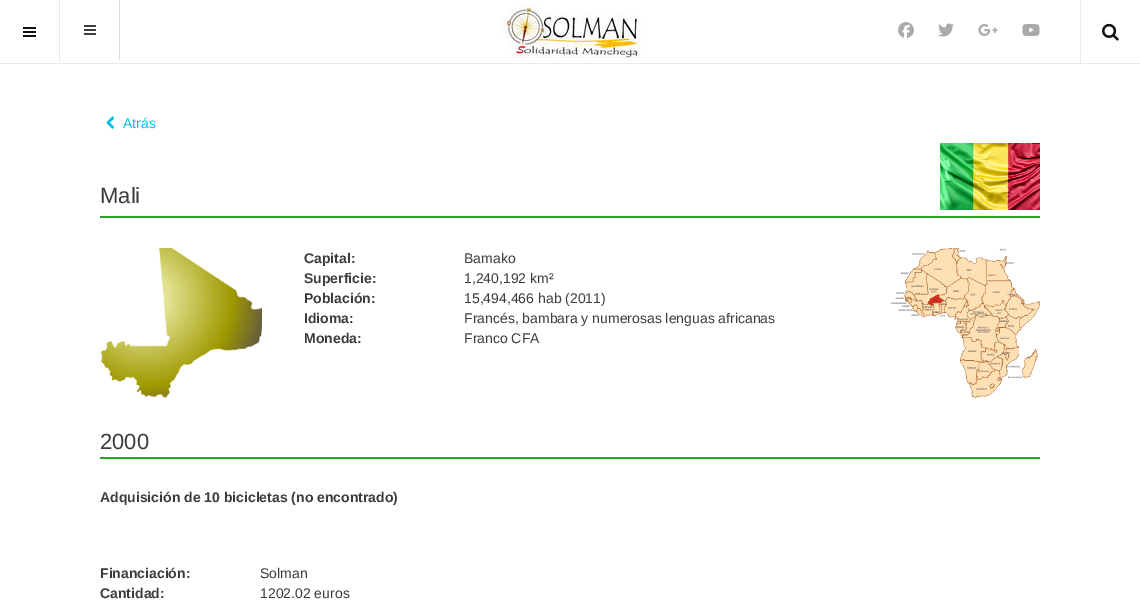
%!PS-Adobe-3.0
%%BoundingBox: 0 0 1140 614
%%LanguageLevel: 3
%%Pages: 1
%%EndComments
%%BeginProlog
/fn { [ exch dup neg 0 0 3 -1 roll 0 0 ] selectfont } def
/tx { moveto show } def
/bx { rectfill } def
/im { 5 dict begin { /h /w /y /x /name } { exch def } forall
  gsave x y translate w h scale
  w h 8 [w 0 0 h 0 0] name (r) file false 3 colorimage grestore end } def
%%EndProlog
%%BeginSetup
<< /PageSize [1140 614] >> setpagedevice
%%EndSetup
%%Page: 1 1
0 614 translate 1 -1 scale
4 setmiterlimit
1 setgray
0 0 1140 614 bx
0.918 setgray
0 63 1140 1 bx
59 0 1 62 bx
0.067 setgray
23 31 13 2 bx
23 27 13 2 bx
23 35 13 2 bx
(image0.raw) 500 6 141 55 im
(image1.raw) 898 22 16 16 im
(image2.raw) 938 23 16 14 im
(image3.raw) 978 24 20 12 im
(image4.raw) 1022 24 18 12 im
0.918 setgray
1080 0 1 63 bx
(image5.raw) 1102 23 17 18 im
0.867 setgray
119 0 1 60 bx
(image6.raw) 84 25 12 10 im
(image7.raw) 106 116 9 13 im
/LiberationSans-Regular 14 fn
0 0.749 0.902 setrgbcolor
(Atrás) 123 128 tx
0.161 0.643 0.145 setrgbcolor
100 216 940 2 bx
/LiberationSans-Regular 22 fn
0.235 setgray
(Mali) 100 203 tx
(image8.raw) 940 143 100 67 im
(image9.raw) 100 248 162 150 im
/LiberationSans-Bold 14 fn
(Capital:) 304 263 tx
/LiberationSans-Regular 14 fn
(Bamako) 464 263 tx
/LiberationSans-Bold 14 fn
(Superficie:) 304 283 tx
/LiberationSans-Regular 14 fn
(1,240,192 km²) 464 283 tx
/LiberationSans-Bold 14 fn
(Población:) 304 303 tx
/LiberationSans-Regular 14 fn
(15,494,466 hab \(2011\)) 464 303 tx
/LiberationSans-Bold 14 fn
(Idioma:) 304 323 tx
/LiberationSans-Regular 14 fn
(Francés, bambara y numerosas lenguas africanas) 464 323 tx
/LiberationSans-Bold 14 fn
(Moneda:) 304 343 tx
/LiberationSans-Regular 14 fn
(Franco CFA) 464 343 tx
(image10.raw) 891 248 149 150 im
0.161 0.643 0.145 setrgbcolor
100 457 940 2 bx
/LiberationSans-Regular 22 fn
0.235 setgray
(2000) 100 449 tx
/LiberationSans-Bold 14 fn
(Adquisición de 10 bicicletas \(no encontrado\)) 100 502 tx
(Financiación:) 100 578 tx
/LiberationSans-Regular 14 fn
(Solman) 260 578 tx
/LiberationSans-Bold 14 fn
(Cantidad:) 100 598 tx
/LiberationSans-Regular 14 fn
(1202.02 euros) 260 598 tx
showpage
%%EOF
